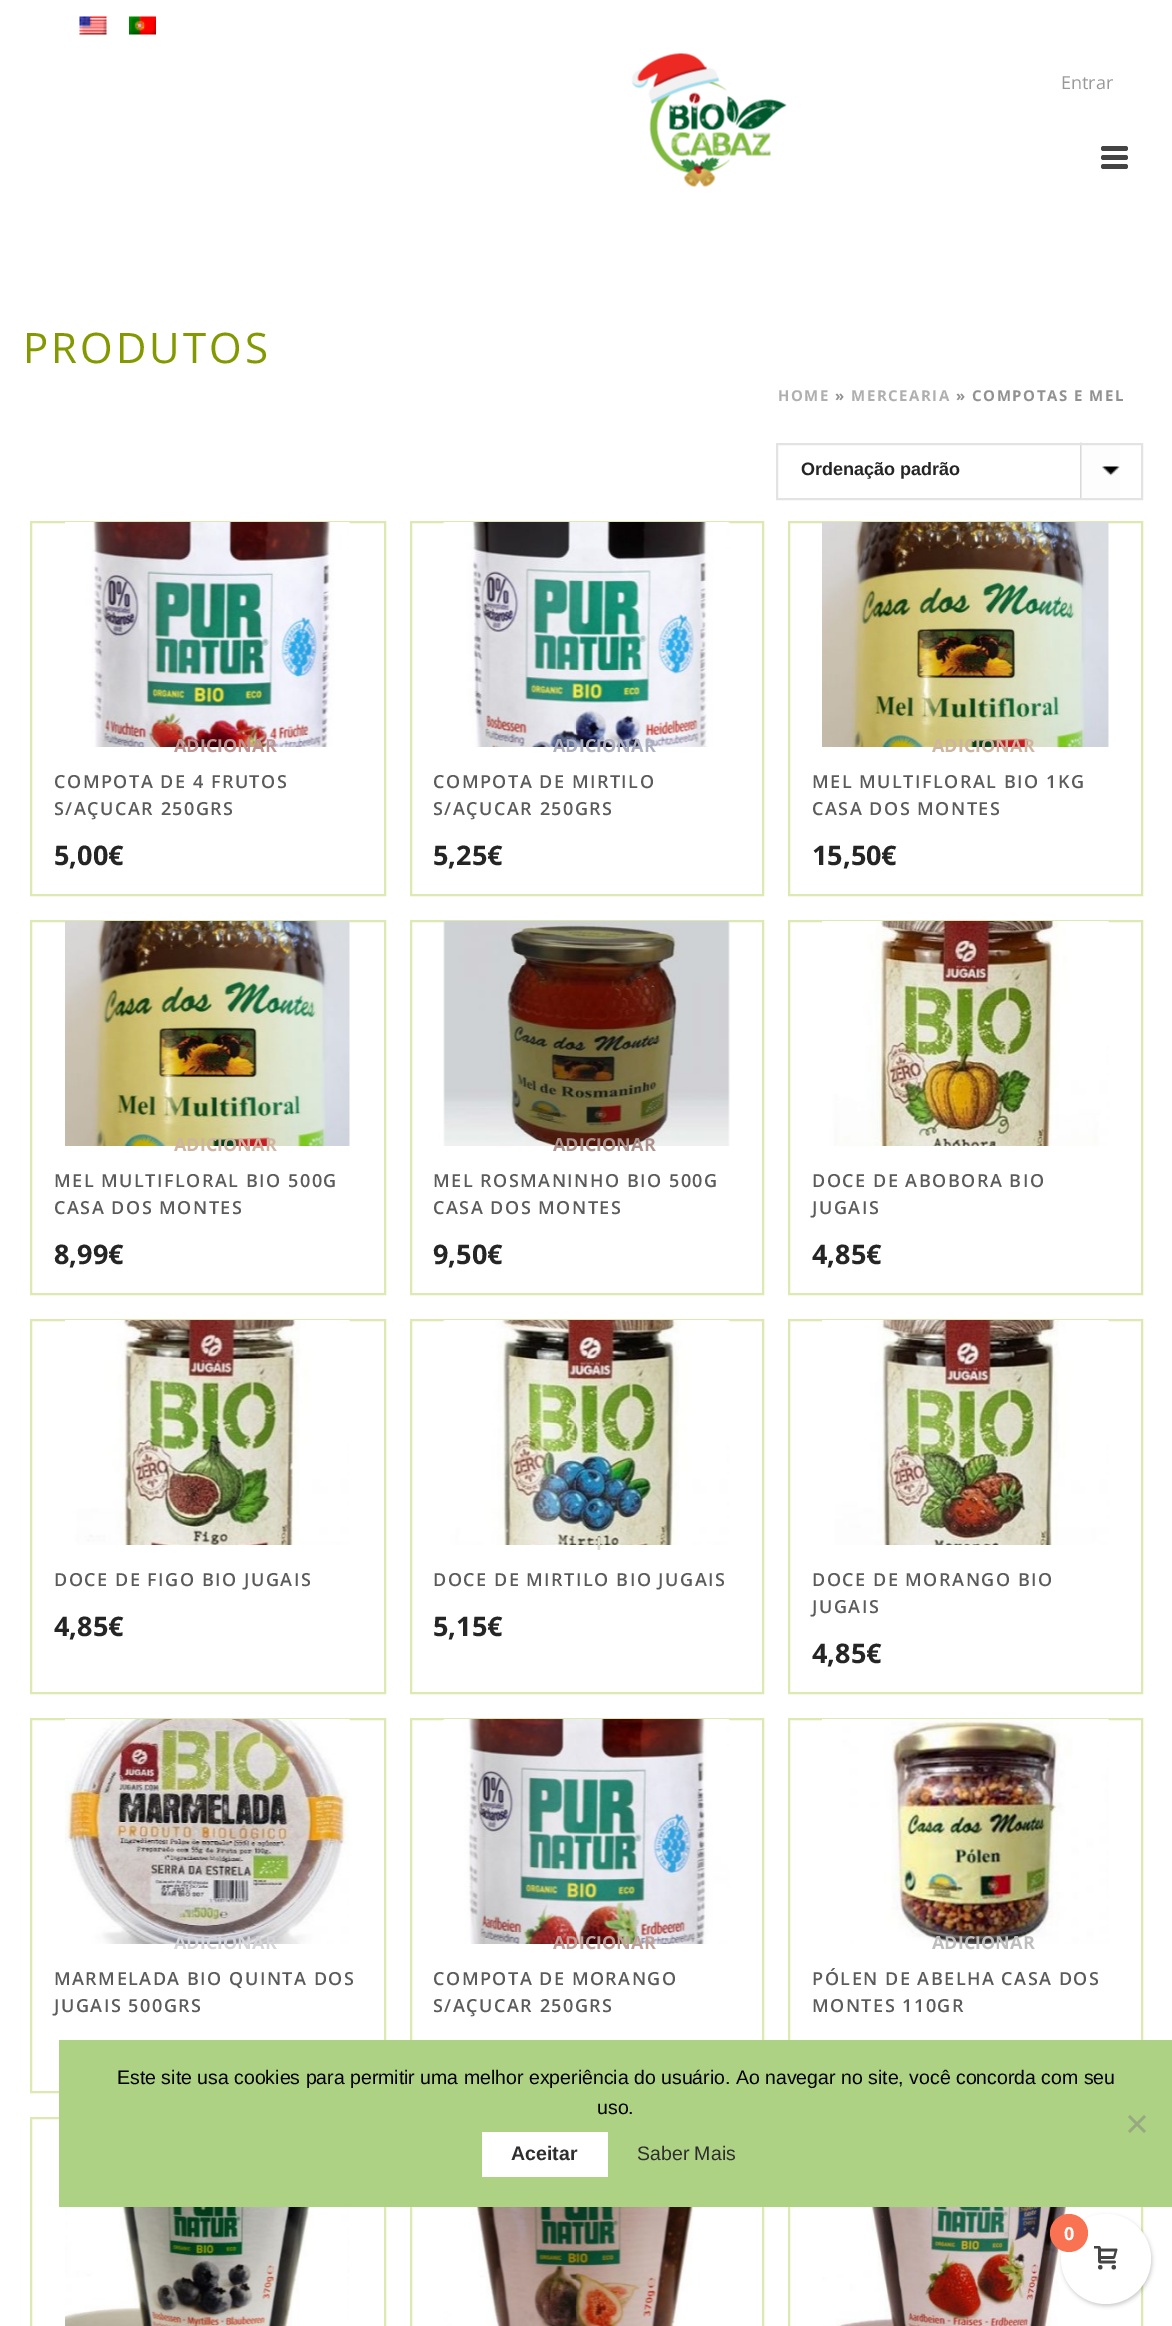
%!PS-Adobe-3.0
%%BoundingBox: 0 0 1172 2326
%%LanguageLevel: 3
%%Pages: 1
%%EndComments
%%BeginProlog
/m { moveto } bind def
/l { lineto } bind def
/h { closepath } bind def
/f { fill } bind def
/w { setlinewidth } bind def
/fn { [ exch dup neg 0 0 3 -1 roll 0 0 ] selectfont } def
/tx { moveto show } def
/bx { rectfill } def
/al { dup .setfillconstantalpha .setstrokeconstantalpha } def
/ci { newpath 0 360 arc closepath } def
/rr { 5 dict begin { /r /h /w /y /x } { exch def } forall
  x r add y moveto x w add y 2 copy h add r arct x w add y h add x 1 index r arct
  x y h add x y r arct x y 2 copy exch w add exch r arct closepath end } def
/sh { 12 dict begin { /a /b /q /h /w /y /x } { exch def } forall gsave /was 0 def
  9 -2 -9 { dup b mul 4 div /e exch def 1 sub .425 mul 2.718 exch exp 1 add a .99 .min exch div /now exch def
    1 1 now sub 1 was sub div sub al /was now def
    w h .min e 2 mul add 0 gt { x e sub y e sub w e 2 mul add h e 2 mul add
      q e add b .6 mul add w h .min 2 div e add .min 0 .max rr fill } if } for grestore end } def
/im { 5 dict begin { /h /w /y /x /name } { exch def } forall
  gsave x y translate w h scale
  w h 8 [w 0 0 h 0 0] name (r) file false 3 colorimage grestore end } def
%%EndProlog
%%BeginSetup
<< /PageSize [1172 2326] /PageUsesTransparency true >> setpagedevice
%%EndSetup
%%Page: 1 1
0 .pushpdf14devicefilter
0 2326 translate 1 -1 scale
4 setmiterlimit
1 setgray
0 0 1172 2326 bx
(image0.raw) 631 53 156 134 im
0.267 setgray
1101 146 27 5 2.5 rr f
1101 155 27 5 2.5 rr f
1101 164 27 5 2.5 rr f
(image1.raw) 79 16 28 19 im
(image2.raw) 129 16 27 19 im
/OpenSans-Regular 18 fn
0.6 setgray
(Entrar) 1061 89 tx
/OpenSans-Regular 42 fn
0.518 0.6 0 setrgbcolor
23 363 m 3 0 (PRODUTOS) ashow
/OpenSans-Bold 15 fn
0.686 setgray
778 401 m 1.5 0 (HOME) ashow
0.569 setgray
835 401 m 1.5 0 (») ashow
0.686 setgray
851 401 m 1.5 0 (MERCEARIA) ashow
0.569 setgray
956 401 m 1.5 0 (» COMPOTAS E MEL) ashow
(image3.raw) 1080 442 40 56 im
0.89 setgray
2 w
777 444 365 55 rectstroke
/LiberationSans-Bold 18 fn
0.145 setgray
(Ordenação padrão) 801 475 tx
0.863 0.914 0.69 setrgbcolor
31 522 354 373 rectstroke
(image4.raw) 65 522 285 225 im
/OpenSans-Bold 18 fn
0.745 0.58 0.573 setrgbcolor
(ADICIONAR) 174 752 tx
/OpenSans-SemiBold 18 fn
0.357 setgray
54 788 m 1.5 0 (COMPOTA DE 4 FRUTOS) ashow
54 815 m 1.5 0 (S/AÇUCAR 250GRS) ashow
/OpenSans-Bold 27 fn
0.145 setgray
(5,00€) 54 865 tx
0.863 0.914 0.69 setrgbcolor
411 522 352 373 rectstroke
(image5.raw) 443 522 287 225 im
/OpenSans-Bold 18 fn
0.678 0.686 0.745 setrgbcolor
(ADICIONAR) 553 752 tx
/OpenSans-SemiBold 18 fn
0.357 setgray
433 788 m 1.5 0 (COMPOTA DE MIRTILO) ashow
433 815 m 1.5 0 (S/AÇUCAR 250GRS) ashow
/OpenSans-Bold 27 fn
0.145 setgray
(5,25€) 433 865 tx
0.863 0.914 0.69 setrgbcolor
789 522 353 373 rectstroke
(image6.raw) 822 522 287 225 im
/OpenSans-Bold 18 fn
0.808 0.71 0.624 setrgbcolor
(ADICIONAR) 932 752 tx
/OpenSans-SemiBold 18 fn
0.357 setgray
812 788 m 1.5 0 (MEL MULTIFLORAL BIO 1KG) ashow
812 815 m 1.5 0 (CASA DOS MONTES) ashow
/OpenSans-Bold 27 fn
0.145 setgray
(15,50€) 812 865 tx
0.863 0.914 0.69 setrgbcolor
31 921 354 373 rectstroke
(image7.raw) 65 921 285 225 im
/OpenSans-Bold 18 fn
0.808 0.71 0.624 setrgbcolor
(ADICIONAR) 174 1151 tx
/OpenSans-SemiBold 18 fn
0.357 setgray
54 1187 m 1.5 0 (MEL MULTIFLORAL BIO 500G) ashow
54 1214 m 1.5 0 (CASA DOS MONTES) ashow
/OpenSans-Bold 27 fn
0.145 setgray
(8,99€) 54 1264 tx
0.863 0.914 0.69 setrgbcolor
411 921 352 373 rectstroke
(image8.raw) 443 921 287 225 im
/OpenSans-Bold 18 fn
0.671 0.573 0.549 setrgbcolor
(ADICIONAR) 553 1151 tx
/OpenSans-SemiBold 18 fn
0.357 setgray
433 1187 m 1.5 0 (MEL ROSMANINHO BIO 500G) ashow
433 1214 m 1.5 0 (CASA DOS MONTES) ashow
/OpenSans-Bold 27 fn
0.145 setgray
(9,50€) 433 1264 tx
0.863 0.914 0.69 setrgbcolor
789 921 353 373 rectstroke
(image9.raw) 822 921 287 225 im
/OpenSans-SemiBold 18 fn
0.357 setgray
812 1187 m 1.5 0 (DOCE DE ABOBORA BIO) ashow
812 1214 m 1.5 0 (JUGAIS) ashow
/OpenSans-Bold 27 fn
0.145 setgray
(4,85€) 812 1264 tx
0.863 0.914 0.69 setrgbcolor
31 1320 354 373 rectstroke
(image10.raw) 65 1320 285 225 im
/OpenSans-SemiBold 18 fn
0.357 setgray
54 1586 m 1.5 0 (DOCE DE FIGO BIO JUGAIS) ashow
/OpenSans-Bold 27 fn
0.145 setgray
(4,85€) 54 1636 tx
0.863 0.914 0.69 setrgbcolor
411 1320 352 373 rectstroke
(image11.raw) 443 1320 287 225 im
/OpenSans-Bold 18 fn
0.863 0.855 0.812 setrgbcolor
(I) 596 1550 tx
/OpenSans-SemiBold 18 fn
0.357 setgray
433 1586 m 1.5 0 (DOCE DE MIRTILO BIO JUGAIS) ashow
/OpenSans-Bold 27 fn
0.145 setgray
(5,15€) 433 1636 tx
0.863 0.914 0.69 setrgbcolor
789 1320 353 373 rectstroke
(image12.raw) 822 1320 287 225 im
/OpenSans-SemiBold 18 fn
0.357 setgray
812 1586 m 1.5 0 (DOCE DE MORANGO BIO) ashow
812 1613 m 1.5 0 (JUGAIS) ashow
/OpenSans-Bold 27 fn
0.145 setgray
(4,85€) 812 1663 tx
0.863 0.914 0.69 setrgbcolor
31 1719 354 373 rectstroke
(image13.raw) 65 1719 285 225 im
/OpenSans-Bold 18 fn
0.831 0.831 0.851 setrgbcolor
(ADICIONAR) 174 1949 tx
/OpenSans-SemiBold 18 fn
0.357 setgray
54 1985 m 1.5 0 (MARMELADA BIO QUINTA DOS) ashow
54 2012 m 1.5 0 (JUGAIS 500GRS) ashow
0.863 0.914 0.69 setrgbcolor
411 1719 352 373 rectstroke
(image14.raw) 443 1719 287 225 im
/OpenSans-Bold 18 fn
0.745 0.627 0.604 setrgbcolor
(ADICIONAR) 553 1949 tx
/OpenSans-SemiBold 18 fn
0.357 setgray
433 1985 m 1.5 0 (COMPOTA DE MORANGO) ashow
433 2012 m 1.5 0 (S/AÇUCAR 250GRS) ashow
0.863 0.914 0.69 setrgbcolor
789 1719 353 373 rectstroke
(image15.raw) 822 1719 287 225 im
/OpenSans-Bold 18 fn
0.745 0.741 0.741 setrgbcolor
(ADICIONAR) 932 1949 tx
/OpenSans-SemiBold 18 fn
0.357 setgray
812 1985 m 1.5 0 (PÓLEN DE ABELHA CASA DOS) ashow
812 2012 m 1.5 0 (MONTES 110GR) ashow
0.863 0.914 0.69 setrgbcolor
31 2118 354 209 rectstroke
(image16.raw) 65 2207 285 119 im
411 2118 352 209 rectstroke
(image17.raw) 443 2207 287 119 im
789 2118 353 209 rectstroke
(image18.raw) 822 2207 287 119 im
0.682 0.824 0.518 setrgbcolor
59 2040 1113 167 bx
/LiberationSans-Regular 19.5 fn
0 setgray
(Este site usa cookies para permitir uma melhor experiência do usuário. Ao navegar no site, você concorda com seu) 117 2084 tx
(uso.) 597 2114 tx
0.592 0.663 0.51 setrgbcolor
1144 2115 m 1146 2117 l 1130 2133 l 1128 2131 l h f
1128 2117 m 1130 2115 l 1146 2131 l 1144 2133 l h f
1 setgray
482 2132 126 45 bx
/LiberationSans-Bold 19.5 fn
0.18 setgray
(Aceitar) 511 2160 tx
/LiberationSans-Regular 19.5 fn
(Saber Mais) 637 2160 tx
0 setgray
1062 2216 90 90 45 2 0.2 sh
1 setgray
1106 2259 45 ci f
0.976 0.451 0.322 setrgbcolor
1069 2233 19 ci f
/OpenSans-Bold 18 fn
1 setgray
(0) 1064 2240 tx
(image19.raw) 1094 2246 24 24 im
.poppdf14devicefilter showpage
%%EOF
